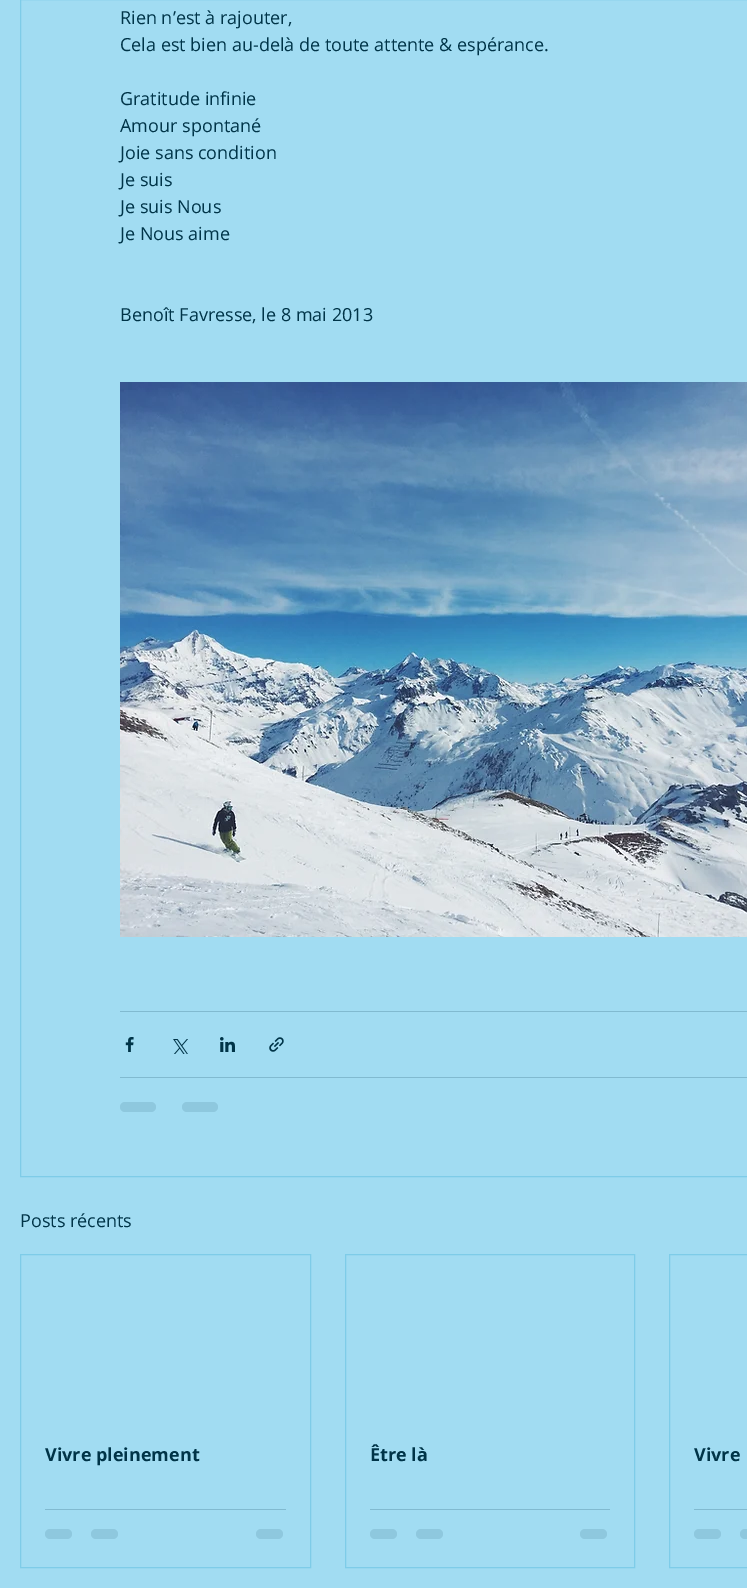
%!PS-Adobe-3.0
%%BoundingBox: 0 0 747 1588
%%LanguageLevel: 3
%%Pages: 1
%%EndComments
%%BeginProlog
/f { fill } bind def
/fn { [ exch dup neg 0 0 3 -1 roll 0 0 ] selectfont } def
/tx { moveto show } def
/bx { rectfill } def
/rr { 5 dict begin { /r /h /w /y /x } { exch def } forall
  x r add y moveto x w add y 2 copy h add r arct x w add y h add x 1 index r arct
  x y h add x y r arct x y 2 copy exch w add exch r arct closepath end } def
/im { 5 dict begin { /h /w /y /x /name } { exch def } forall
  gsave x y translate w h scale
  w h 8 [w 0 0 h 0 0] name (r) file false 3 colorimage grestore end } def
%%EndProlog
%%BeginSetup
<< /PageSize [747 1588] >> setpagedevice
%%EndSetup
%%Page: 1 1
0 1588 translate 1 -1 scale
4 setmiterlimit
0.631 0.863 0.949 setrgbcolor
0 0 747 1588 bx
0.494 0.8 0.91 setrgbcolor
20.5 -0.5 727 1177 rectstroke
/OpenSans-Regular 18 fn
0 0.204 0.282 setrgbcolor
(Rien n’est à rajouter,) 120 24 tx
(Cela est bien au-delà de toute attente & espérance.) 120 51 tx
(Gratitude infinie) 120 105 tx
(Amour spontané) 120 132 tx
(Joie sans condition) 120 159 tx
(Je suis) 120 186 tx
(Je suis Nous) 120 213 tx
(Je Nous aime) 120 240 tx
(Benoît Favresse, le 8 mai 2013) 120 321 tx
(image0.raw) 120 382 627 555 im
0.506 0.729 0.816 setrgbcolor
120 1011 627 1 bx
(image1.raw) 125 1037 9 15 im
(image2.raw) 173 1039 15 15 im
(image3.raw) 220 1037 15 15 im
(image4.raw) 269 1037 15 15 im
120 1077 627 1 bx
0.557 0.784 0.871 setrgbcolor
120 1102 36 10 5 rr f
182 1102 36 10 5 rr f
0 0.204 0.282 setrgbcolor
(Posts récents) 20 1227 tx
0.494 0.8 0.91 setrgbcolor
20.5 1254.5 290 313 rectstroke
/OpenSans-Bold 18 fn
0 0.204 0.282 setrgbcolor
(Vivre pleinement) 45 1461 tx
0.506 0.729 0.816 setrgbcolor
45 1509 241 1 bx
0.557 0.784 0.871 setrgbcolor
45 1529 27 10 5 rr f
91 1529 27 10 5 rr f
256 1529 27 10 5 rr f
0.494 0.8 0.91 setrgbcolor
345.5 1254.5 289 313 rectstroke
0 0.204 0.282 setrgbcolor
(Être là) 370 1461 tx
0.506 0.729 0.816 setrgbcolor
370 1509 240 1 bx
0.557 0.784 0.871 setrgbcolor
370 1529 27 10 5 rr f
416 1529 27 10 5 rr f
580 1529 27 10 5 rr f
0.494 0.8 0.91 setrgbcolor
669.5 1254.5 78 313 rectstroke
0 0.204 0.282 setrgbcolor
(Vivre) 694 1461 tx
0.506 0.729 0.816 setrgbcolor
694 1509 53 1 bx
0.557 0.784 0.871 setrgbcolor
694 1529 27 10 5 rr f
740 1529 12 10 5 rr f
showpage
%%EOF
